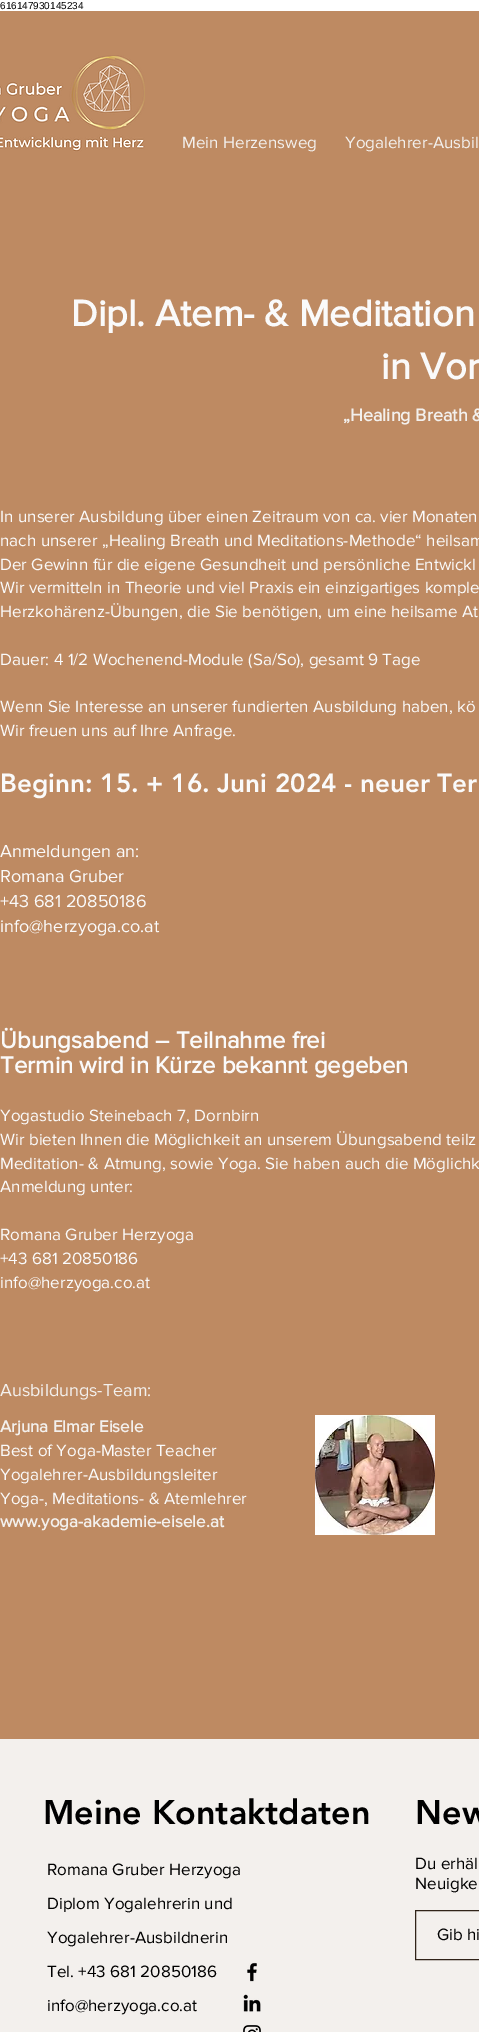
%!PS-Adobe-3.0
%%BoundingBox: 0 0 479 2032
%%LanguageLevel: 3
%%Pages: 1
%%EndComments
%%BeginProlog
/fn { [ exch dup neg 0 0 3 -1 roll 0 0 ] selectfont } def
/tx { moveto show } def
/bx { rectfill } def
/im { 5 dict begin { /h /w /y /x /name } { exch def } forall
  gsave x y translate w h scale
  w h 8 [w 0 0 h 0 0] name (r) file false 3 colorimage grestore end } def
%%EndProlog
%%BeginSetup
<< /PageSize [479 2032] >> setpagedevice
%%EndSetup
%%Page: 1 1
0 2032 translate 1 -1 scale
4 setmiterlimit
1 setgray
0 0 479 2032 bx
/LiberationSans-Regular 10 fn
0 setgray
(616147930145234) 0 9 tx
0.745 0.541 0.384 setrgbcolor
0 11 479 1728 bx
(image0.raw) 0 55 145 97 im
/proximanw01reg-Regular 17 fn
0.953 0.941 0.929 setrgbcolor
(Mein Herzensweg) 182 148 tx
(Yogalehrer-Ausbil) 345 148 tx
/proximanw01reg-Bold 38 fn
0.98 setgray
(Dipl. Atem- & Meditation) 71 326 tx
(in Vor) 381 379 tx
/proximanw01reg-Bold 18 fn
0.953 0.941 0.929 setrgbcolor
(„Healing Breath &) 343 421 tx
/proximanw01reg-Regular 17 fn
0.98 setgray
(In unserer Ausbildung über einen Zeitraum von ca. vier Monaten) 0 522 tx
(nach unserer „Healing Breath und Meditations-Methode“ heilsam) 0 546 tx
(Der Gewinn für die eigene Gesundheit und persönliche Entwickl) 0 570 tx
(Wir vermitteln in Theorie und viel Praxis ein einzigartiges komple) 0 593 tx
(Herzkohärenz-Übungen, die Sie benötigen, um eine heilsame At) 0 617 tx
(Dauer: 4 1/2 Wochenend-Module \(Sa/So\), gesamt 9 Tage) 0 665 tx
(Wenn Sie Interesse an unserer fundierten Ausbildung haben, kö) 0 712 tx
(Wir freuen uns auf Ihre Anfrage.) 0 736 tx
/proximanw01reg-Bold 24 fn
(Übungsabend – Teilnahme frei) 0 1048 tx
(Termin wird in Kürze bekannt gegeben) 0 1073 tx
/proximanw01reg-Regular 17 fn
(Yogastudio Steinebach 7, Dornbirn) 0 1121 tx
(Wir bieten Ihnen die Möglichkeit an unserem Übungsabend teilz) 0 1145 tx
(Meditation- & Atmung, sowie Yoga. Sie haben auch die Möglichk) 0 1169 tx
(Anmeldung unter:) 0 1192 tx
(Romana Gruber Herzyoga) 0 1240 tx
(+43 681 20850186) 0 1264 tx
(info@herzyoga.co.at) 0 1288 tx
/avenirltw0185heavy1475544-Black 26 fn
(Beginn: 15. + 16. Juni 2024 - neuer Ter) 0 792 tx
/proximanw01reg-Regular 18 fn
(Anmeldungen an:) 0 857 tx
(Romana Gruber) 0 882 tx
(+43 681 20850186) 0 907 tx
(info@herzyoga.co.at) 0 932 tx
0.953 0.941 0.929 setrgbcolor
(Ausbildungs-Team:) 0 1396 tx
/proximanw01reg-Bold 17 fn
(Arjuna Elmar Eisele) 0 1432 tx
/proximanw01reg-Regular 17 fn
0.98 setgray
(Best of Yoga-Master Teacher) 0 1456 tx
(Yogalehrer-Ausbildungsleiter) 0 1480 tx
(Yoga-, Meditations- & Atemlehrer) 0 1504 tx
/proximanw01reg-Bold 17 fn
0.953 0.941 0.929 setrgbcolor
(www.yoga-akademie-eisele.at) 0 1527 tx
(image1.raw) 315 1415 120 120 im
0 1739 479 293 bx
/avenirltw0185heavy1475544-Black 34 fn
0 setgray
(Meine Kontaktdaten) 43 1824 tx
/proximanw01reg-Regular 17 fn
(Romana Gruber Herzyoga) 47 1875 tx
(Diplom Yogalehrerin und) 47 1909 tx
(Yogalehrer-Ausbildnerin) 47 1943 tx
(Tel. +43 681 20850186) 47 1977 tx
(info@herzyoga.co.at) 47 2011 tx
(image2.raw) 247 1962 10 20 im
(image3.raw) 243 1994 18 18 im
(image4.raw) 243 2025 18 7 im
/avenirltw0185heavy1475544-Black 34 fn
(New) 415 1824 tx
/proximanw01reg-Regular 17 fn
(Du erhäl) 415 1869 tx
(Neuigke) 415 1889 tx
0.188 0.137 0.098 setrgbcolor
415.5 1910.5 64 49 rectstroke
0 setgray
(Gib hi) 437 1940 tx
showpage
%%EOF
